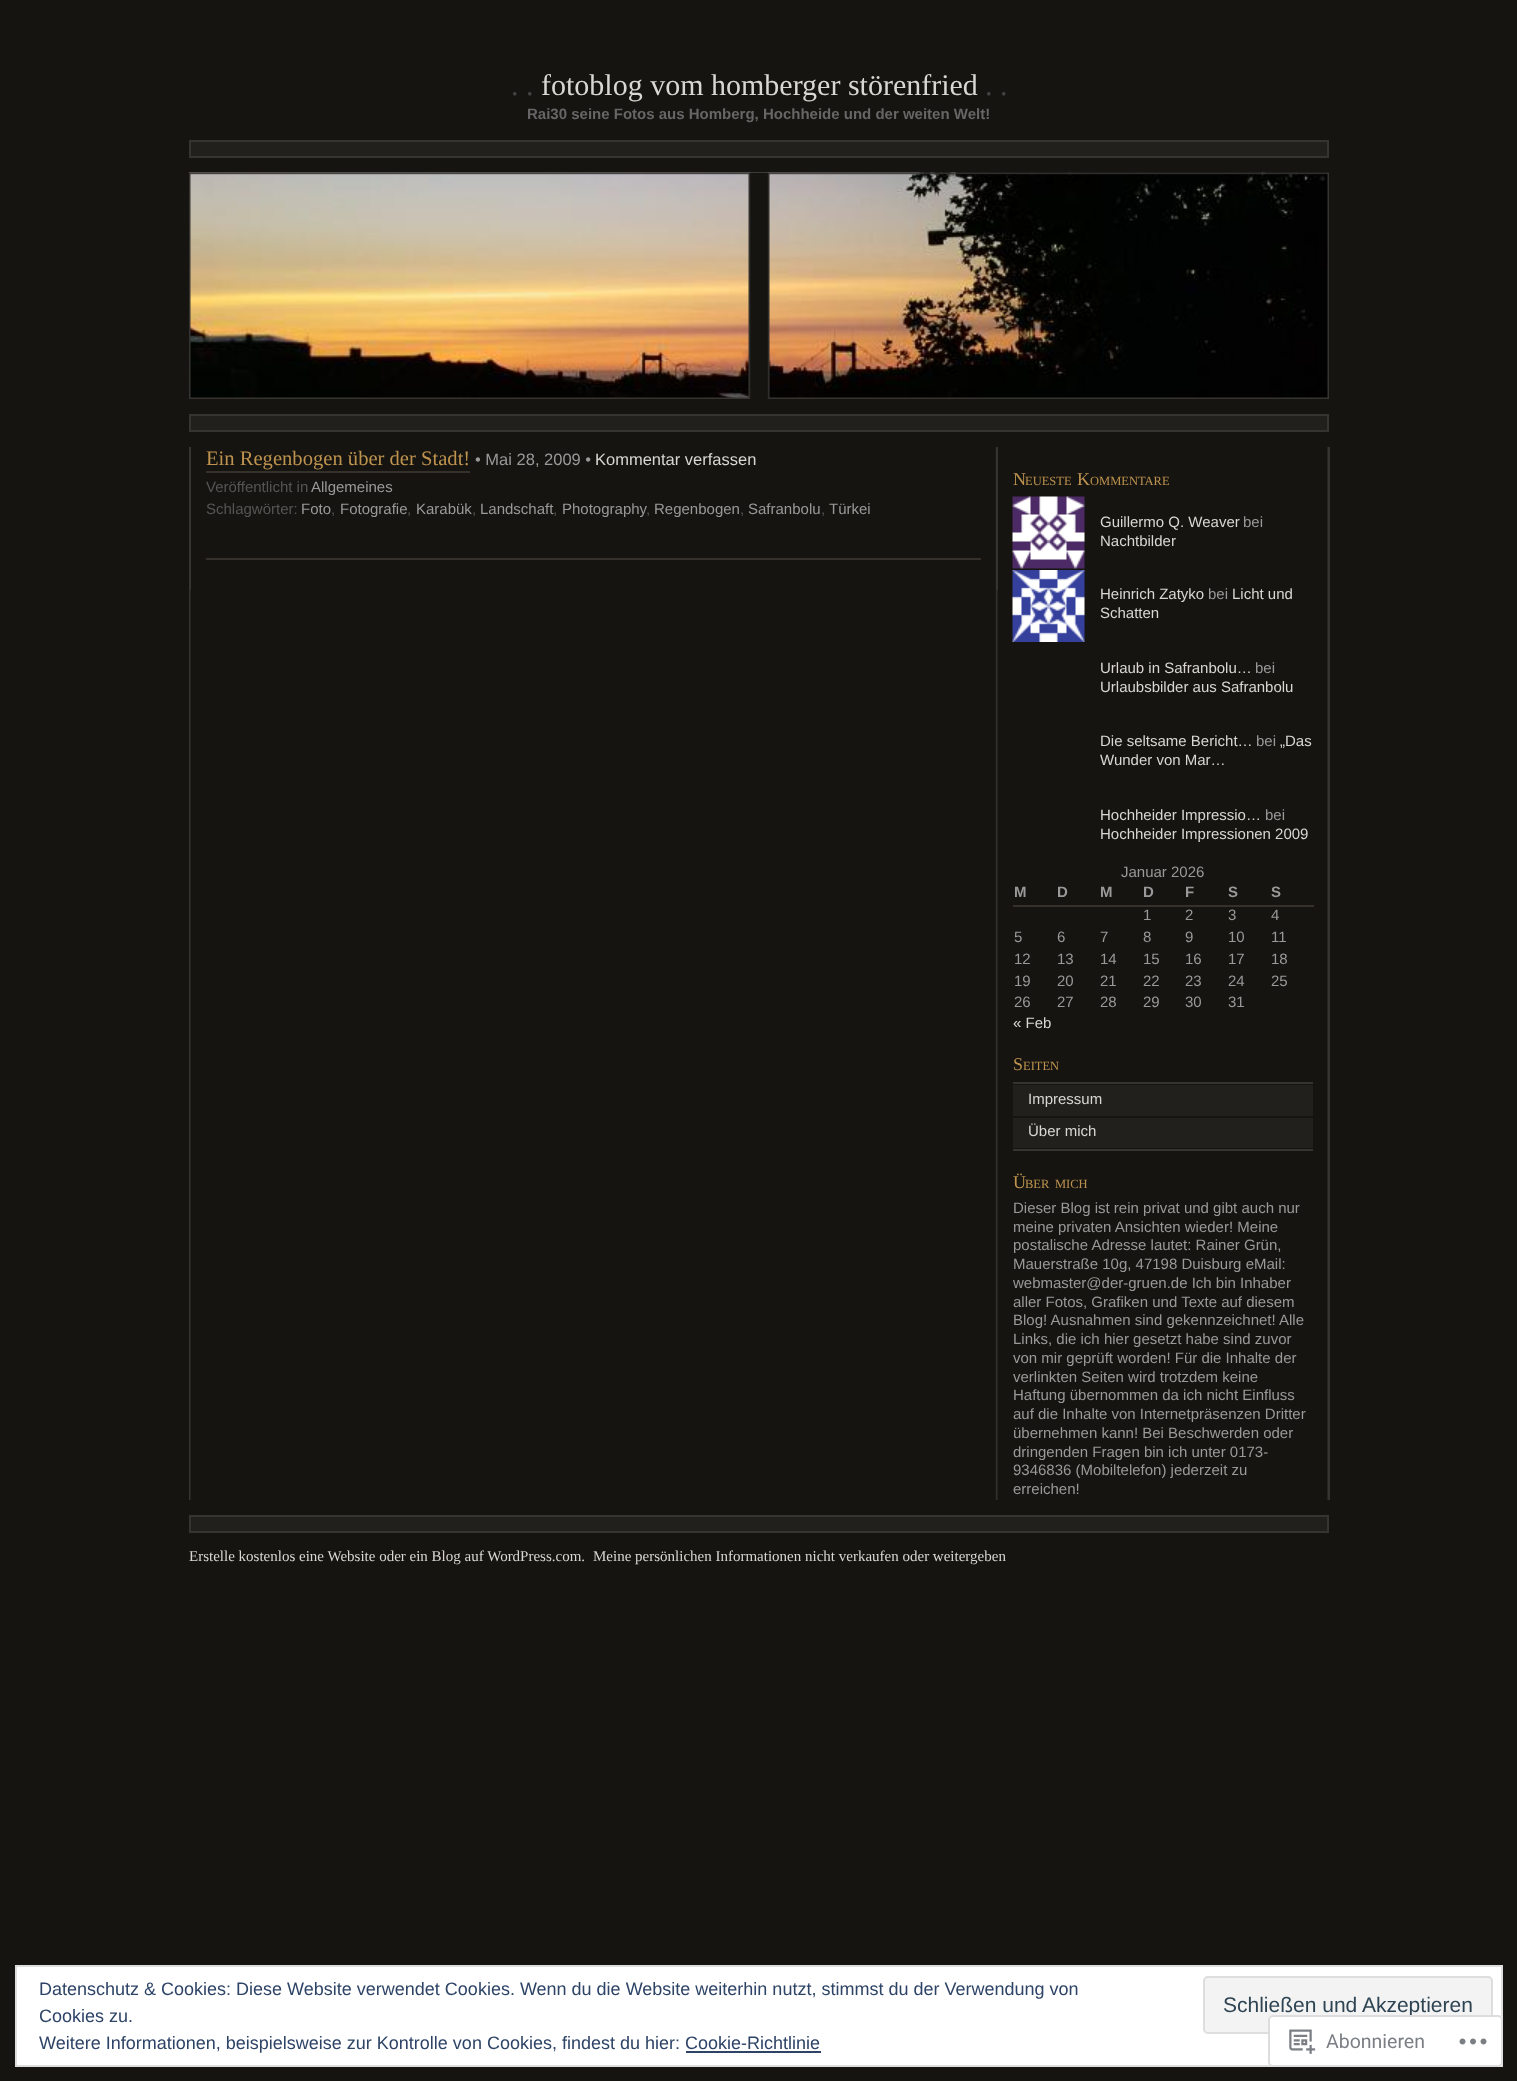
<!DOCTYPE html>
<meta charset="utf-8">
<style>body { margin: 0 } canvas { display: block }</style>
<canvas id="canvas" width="1517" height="2081"></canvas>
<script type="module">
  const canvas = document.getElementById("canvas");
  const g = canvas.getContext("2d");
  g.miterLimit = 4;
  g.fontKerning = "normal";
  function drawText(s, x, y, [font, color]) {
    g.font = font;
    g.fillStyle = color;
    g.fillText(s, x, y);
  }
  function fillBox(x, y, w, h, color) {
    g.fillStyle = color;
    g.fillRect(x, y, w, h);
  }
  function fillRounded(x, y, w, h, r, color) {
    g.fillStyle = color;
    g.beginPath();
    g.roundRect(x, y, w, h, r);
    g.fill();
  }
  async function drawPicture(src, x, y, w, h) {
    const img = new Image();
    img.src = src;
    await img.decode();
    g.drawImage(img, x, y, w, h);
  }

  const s1 = ["30px Liberation Serif", "#444444"];
  const s2 = ["30px Liberation Serif", "#D8D7D3"];
  const s3 = ["bold 15px Liberation Sans", "#666666"];
  const s4 = ["20.6px Liberation Serif", "#BD934F"];
  const s5 = ["16.5px Liberation Sans", "#999999"];
  const s6 = ["16.5px Liberation Sans", "#D8D7D3"];
  const s7 = ["15px Liberation Sans", "#555555"];
  const s8 = ["15px Liberation Sans", "#999999"];
  const s9 = ["18px Liberation Serif", "#BD934F"];
  const s10 = ["12.5px Liberation Serif", "#BD934F"];
  const s11 = ["15px Liberation Sans", "#D8D7D3"];
  const s12 = ["bold 15px Liberation Sans", "#999999"];
  const s13 = ["15px Liberation Serif", "#D8D7D3"];
  const s14 = ["18px Liberation Sans", "#2E4467"];
  const s15 = ["21px Liberation Sans", "#2E4453"];
  const s16 = ["19.5px Roboto", "#7B7F84"];

  fillBox(0, 0, 1517, 2081, "#161410");
  drawText(". .", 511, 95, s1);
  drawText("fotoblog vom homberger störenfried", 541, 95, s2);
  drawText(". .", 985, 95, s1);
  drawText("Rai30 seine Fotos aus Homberg, Hochheide und der weiten Welt!", 527, 119, s3);
  g.fillStyle = "#22201D";
  g.beginPath();
  g.rect(190, 141, 1138, 16);
  g.fill();
  g.strokeStyle = "#363430";
  g.lineWidth = 2;
  g.stroke();
  await drawPicture("pic1.png", 189, 172, 1140, 226);
  await drawPicture("pic2.png", 189, 172, 1140, 227);
  g.beginPath();
  g.rect(190, 415, 1138, 16);
  g.fill();
  g.stroke();
  await drawPicture("pic3.png", 189, 447, 1139, 1053);
  fillBox(996, 447, 2, 143, "#363430");
  fillBox(190, 447, 1, 143, "#363430");
  drawText("Ein Regenbogen über der Stadt!", 206, 465, s4);
  fillBox(206, 471, 264, 2, "#35302A");
  drawText("• Mai 28, 2009 •", 475, 465, s5);
  drawText("Kommentar verfassen", 595, 465, s6);
  drawText("Veröffentlicht in", 206, 492, s7);
  drawText("Allgemeines", 311, 492, s8);
  drawText("Schlagwörter:", 206, 514, s7);
  drawText("Foto", 301, 514, s8);
  drawText(",", 331, 514, s7);
  drawText("Fotografie", 340, 514, s8);
  drawText(",", 407, 514, s7);
  drawText("Karabük", 416, 514, s8);
  drawText(",", 472, 514, s7);
  drawText("Landschaft", 480, 514, s8);
  drawText(",", 553, 514, s7);
  drawText("Photography", 562, 514, s8);
  drawText(",", 646, 514, s7);
  drawText("Regenbogen", 654, 514, s8);
  drawText(",", 740, 514, s7);
  drawText("Safranbolu", 748, 514, s8);
  drawText(",", 821, 514, s7);
  drawText("Türkei", 829, 514, s8);
  fillBox(206, 558, 775, 2, "#35302A");
  fillBox(1328, 447, 2, 1053, "#363430");
  drawText("N", 1013, 485, s9);
  drawText("EUESTE", 1025, 485, s10);
  drawText("K", 1077, 485, s9);
  drawText("OMMENTARE", 1090, 485, s10);
  await drawPicture("pic4.png", 1012, 496, 73, 73);
  drawText("Guillermo Q. Weaver", 1100, 527, s11);
  drawText("bei", 1243, 527, s8);
  drawText("Nachtbilder", 1100, 546, s11);
  await drawPicture("pic5.png", 1012, 570, 73, 72);
  drawText("Heinrich Zatyko", 1100, 599, s11);
  drawText("bei", 1208, 599, s8);
  drawText("Licht und", 1232, 599, s11);
  drawText("Schatten", 1100, 618, s11);
  drawText("Urlaub in Safranbolu…", 1100, 673, s11);
  drawText("bei", 1255, 673, s8);
  drawText("Urlaubsbilder aus Safranbolu", 1100, 692, s11);
  drawText("Die seltsame Bericht…", 1100, 746, s11);
  drawText("bei", 1256, 746, s8);
  drawText("„Das", 1280, 746, s11);
  drawText("Wunder von Mar…", 1100, 765, s11);
  drawText("Hochheider Impressio…", 1100, 820, s11);
  drawText("bei", 1265, 820, s8);
  drawText("Hochheider Impressionen 2009", 1100, 839, s11);
  drawText("Januar 2026", 1121, 877, s8);
  drawText("M", 1014, 897, s12);
  drawText("D", 1057, 897, s12);
  drawText("M", 1100, 897, s12);
  drawText("D", 1143, 897, s12);
  drawText("F", 1185, 897, s12);
  drawText("S", 1228, 897, s12);
  fillBox(1013, 905, 301, 2, "#35302A");
  drawText("S", 1271, 897, s12);
  drawText("1", 1143, 920, s8);
  drawText("2", 1185, 920, s8);
  drawText("3", 1228, 920, s8);
  drawText("4", 1271, 920, s8);
  drawText("5", 1014, 942, s8);
  drawText("6", 1057, 942, s8);
  drawText("7", 1100, 942, s8);
  drawText("8", 1143, 942, s8);
  drawText("9", 1185, 942, s8);
  drawText("10", 1228, 942, s8);
  drawText("11", 1271, 942, s8);
  drawText("12", 1014, 964, s8);
  drawText("13", 1057, 964, s8);
  drawText("14", 1100, 964, s8);
  drawText("15", 1143, 964, s8);
  drawText("16", 1185, 964, s8);
  drawText("17", 1228, 964, s8);
  drawText("18", 1271, 964, s8);
  drawText("19", 1014, 986, s8);
  drawText("20", 1057, 986, s8);
  drawText("21", 1100, 986, s8);
  drawText("22", 1143, 986, s8);
  drawText("23", 1185, 986, s8);
  drawText("24", 1228, 986, s8);
  drawText("25", 1271, 986, s8);
  drawText("26", 1014, 1007, s8);
  drawText("27", 1057, 1007, s8);
  drawText("28", 1100, 1007, s8);
  drawText("29", 1143, 1007, s8);
  drawText("30", 1185, 1007, s8);
  drawText("31", 1228, 1007, s8);
  drawText("« Feb", 1013, 1028, s11);
  drawText("S", 1013, 1070, s9);
  drawText("EITEN", 1023, 1070, s10);
  fillBox(1013, 1082, 300, 2, "#363430");
  fillBox(1013, 1149, 300, 2, "#363430");
  fillBox(1013, 1085, 300, 31, "#22201D");
  drawText("Impressum", 1028, 1104, s11);
  fillBox(1013, 1118, 300, 30, "#22201D");
  drawText("Über mich", 1028, 1136, s11);
  drawText("Ü", 1013, 1188, s9);
  drawText("BER", 1025, 1188, s10);
  drawText("MICH", 1055, 1188, s10);
  drawText("Dieser Blog ist rein privat und gibt auch nur", 1013, 1213, s8);
  drawText("meine privaten Ansichten wieder! Meine", 1013, 1232, s8);
  drawText("postalische Adresse lautet: Rainer Grün,", 1013, 1250, s8);
  drawText("Mauerstraße 10g, 47198 Duisburg eMail:", 1013, 1269, s8);
  drawText("webmaster@der-gruen.de Ich bin Inhaber", 1013, 1288, s8);
  drawText("aller Fotos, Grafiken und Texte auf diesem", 1013, 1307, s8);
  drawText("Blog! Ausnahmen sind gekennzeichnet!", 1013, 1325, s8);
  drawText("Alle", 1279, 1325, s8);
  drawText("Links, die ich hier gesetzt habe sind zuvor", 1013, 1344, s8);
  drawText("von mir geprüft worden! Für die Inhalte der", 1013, 1363, s8);
  drawText("verlinkten Seiten wird trotzdem keine", 1013, 1382, s8);
  drawText("Haftung übernommen da ich nicht Einfluss", 1013, 1400, s8);
  drawText("auf die Inhalte von Internetpräsenzen Dritter", 1013, 1419, s8);
  drawText("übernehmen kann! Bei Beschwerden oder", 1013, 1438, s8);
  drawText("dringenden Fragen bin ich unter 0173-", 1013, 1457, s8);
  drawText("9346836 (Mobiltelefon) jederzeit zu", 1013, 1475, s8);
  drawText("erreichen!", 1013, 1494, s8);
  g.fillStyle = "#22201D";
  g.beginPath();
  g.rect(190, 1516, 1138, 16);
  g.fill();
  g.stroke();
  drawText("Erstelle kostenlos eine Website oder ein Blog auf WordPress.com.", 189, 1561, s13);
  drawText("Meine persönlichen Informationen nicht verkaufen oder weitergeben", 593, 1561, s13);
  g.fillStyle = "#FFFFFF";
  g.beginPath();
  g.rect(16, 1966, 1486, 100);
  g.fill();
  g.strokeStyle = "#DEDEDE";
  g.stroke();
  drawText("Datenschutz & Cookies: Diese Website verwendet Cookies. Wenn du die Website weiterhin nutzt, stimmst du der Verwendung von", 39, 1995, s14);
  drawText("Cookies zu.", 39, 2022, s14);
  g.fillStyle = "#F3F3F3";
  g.beginPath();
  g.roundRect(1204, 1977, 288, 56, 4);
  g.fill();
  g.stroke();
  drawText("Schließen und Akzeptieren", 1223, 2012, s15);
  drawText("Weitere Informationen, beispielsweise zur Kontrolle von Cookies, findest du hier: Cookie-Richtlinie", 39, 2049, s14);
  fillBox(686, 2051, 135, 2, "#2E4467");
  fillRounded(1268, 2015, 235, 52, 5, "rgba(255, 255, 255, 0.98)");
  g.beginPath();
  g.roundRect(1269, 2016, 233, 50, 4);
  g.strokeStyle = "rgba(220, 220, 222, 0.98)";
  g.stroke();
  await drawPicture("pic6.png", 1289, 2029, 27, 25);
  drawText("Abonnieren", 1326, 2048, s16);
  await drawPicture("pic7.png", 1459, 2038, 28, 7);
</script>
